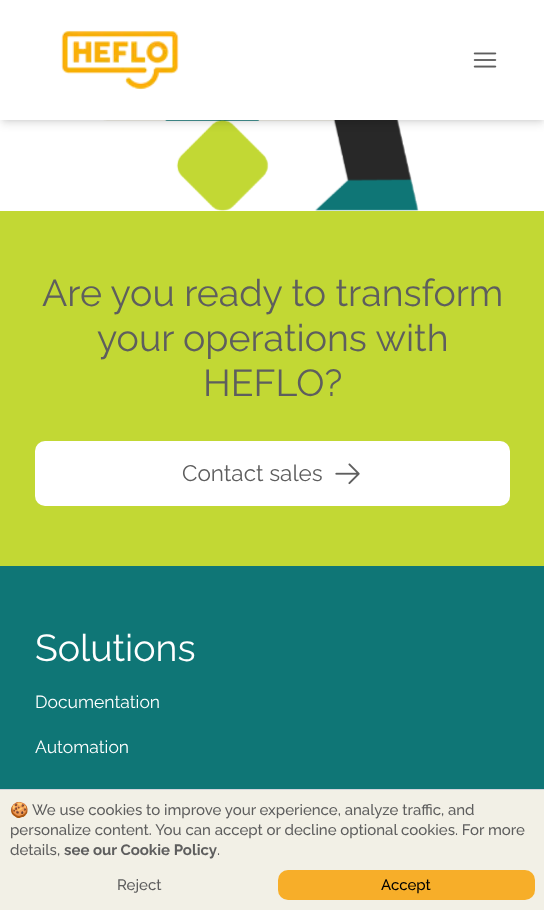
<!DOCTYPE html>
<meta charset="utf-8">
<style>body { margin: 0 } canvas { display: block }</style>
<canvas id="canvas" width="544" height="910"></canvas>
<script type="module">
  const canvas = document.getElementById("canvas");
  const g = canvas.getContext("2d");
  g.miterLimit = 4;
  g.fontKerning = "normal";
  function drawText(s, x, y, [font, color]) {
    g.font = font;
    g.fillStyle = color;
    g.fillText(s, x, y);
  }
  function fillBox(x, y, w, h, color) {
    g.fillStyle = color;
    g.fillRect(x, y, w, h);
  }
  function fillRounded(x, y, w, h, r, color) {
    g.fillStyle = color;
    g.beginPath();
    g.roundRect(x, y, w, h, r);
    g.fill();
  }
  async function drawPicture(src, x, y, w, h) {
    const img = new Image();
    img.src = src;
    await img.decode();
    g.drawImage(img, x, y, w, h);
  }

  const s1 = ["37.5px Raleway", "#5E5E5E"];
  const s2 = ["22.5px Raleway", "#5E5E5E"];
  const s3 = ["37.5px Raleway", "#FFFFFF"];
  const s4 = ["17.5px Raleway", "#FFFFFF"];
  const s5 = ["15px Noto Color Emoji", "#5E5E5E"];
  const s6 = ["500 15px Raleway", "#5E5E5E"];
  const s7 = ["bold 15px Raleway", "#5E5E5E"];
  const s8 = ["500 15px Raleway", "#000000"];

  fillBox(0, 0, 544, 910, "#FFFFFF");
  await drawPicture("pic3.png", 102, 120, 317, 91);
  g.fillStyle = "rgba(0, 0, 0, 0.1)";
  g.filter = "blur(2.5px)";
  g.beginPath();
  g.rect(3, 5, 540, 115);
  g.fill();
  g.filter = "none";
  g.filter = "blur(4px)";
  g.beginPath();
  g.rect(1, 6, 543, 118);
  g.fill();
  g.filter = "none";
  fillBox(0, 0, 544, 120, "#FFFFFF");
  await drawPicture("pic1.png", 61, 30, 118, 60);
  await drawPicture("pic2.png", 473, 52, 24, 16);
  fillBox(0, 211, 544, 355, "#C2D834");
  drawText("Are you ready to transform", 42, 306, s1);
  drawText("your operations with", 97, 351, s1);
  drawText("HEFLO?", 203, 396, s1);
  fillRounded(35, 441, 475, 65, 10, "#FFFFFF");
  drawText("Contact sales", 182, 481, s2);
  await drawPicture("pic4.png", 335, 463, 25, 22);
  fillBox(0, 566, 544, 223, "#0F7676");
  drawText("Solutions", 35, 661, s3);
  drawText("Documentation", 35, 708, s4);
  drawText("Automation", 35, 753, s4);
  fillBox(0, 790, 544, 120, "#F2F0E6");
  fillBox(0, 789, 544, 1, "#D1D5DB");
  drawText("🍪", 10, 815, s5);
  drawText("We use cookies to improve your experience, analyze traffic, and", 32, 815, s6);
  drawText("personalize content. You can accept or decline optional cookies. For more", 10, 835, s6);
  drawText("details,", 10, 855, s6);
  drawText("see our Cookie Policy", 64, 855, s7);
  drawText(".", 217, 855, s6);
  drawText("Reject", 117, 890, s6);
  fillRounded(278, 870, 257, 30, 10, "#F7AE29");
  drawText("Accept", 381, 890, s8);
</script>
